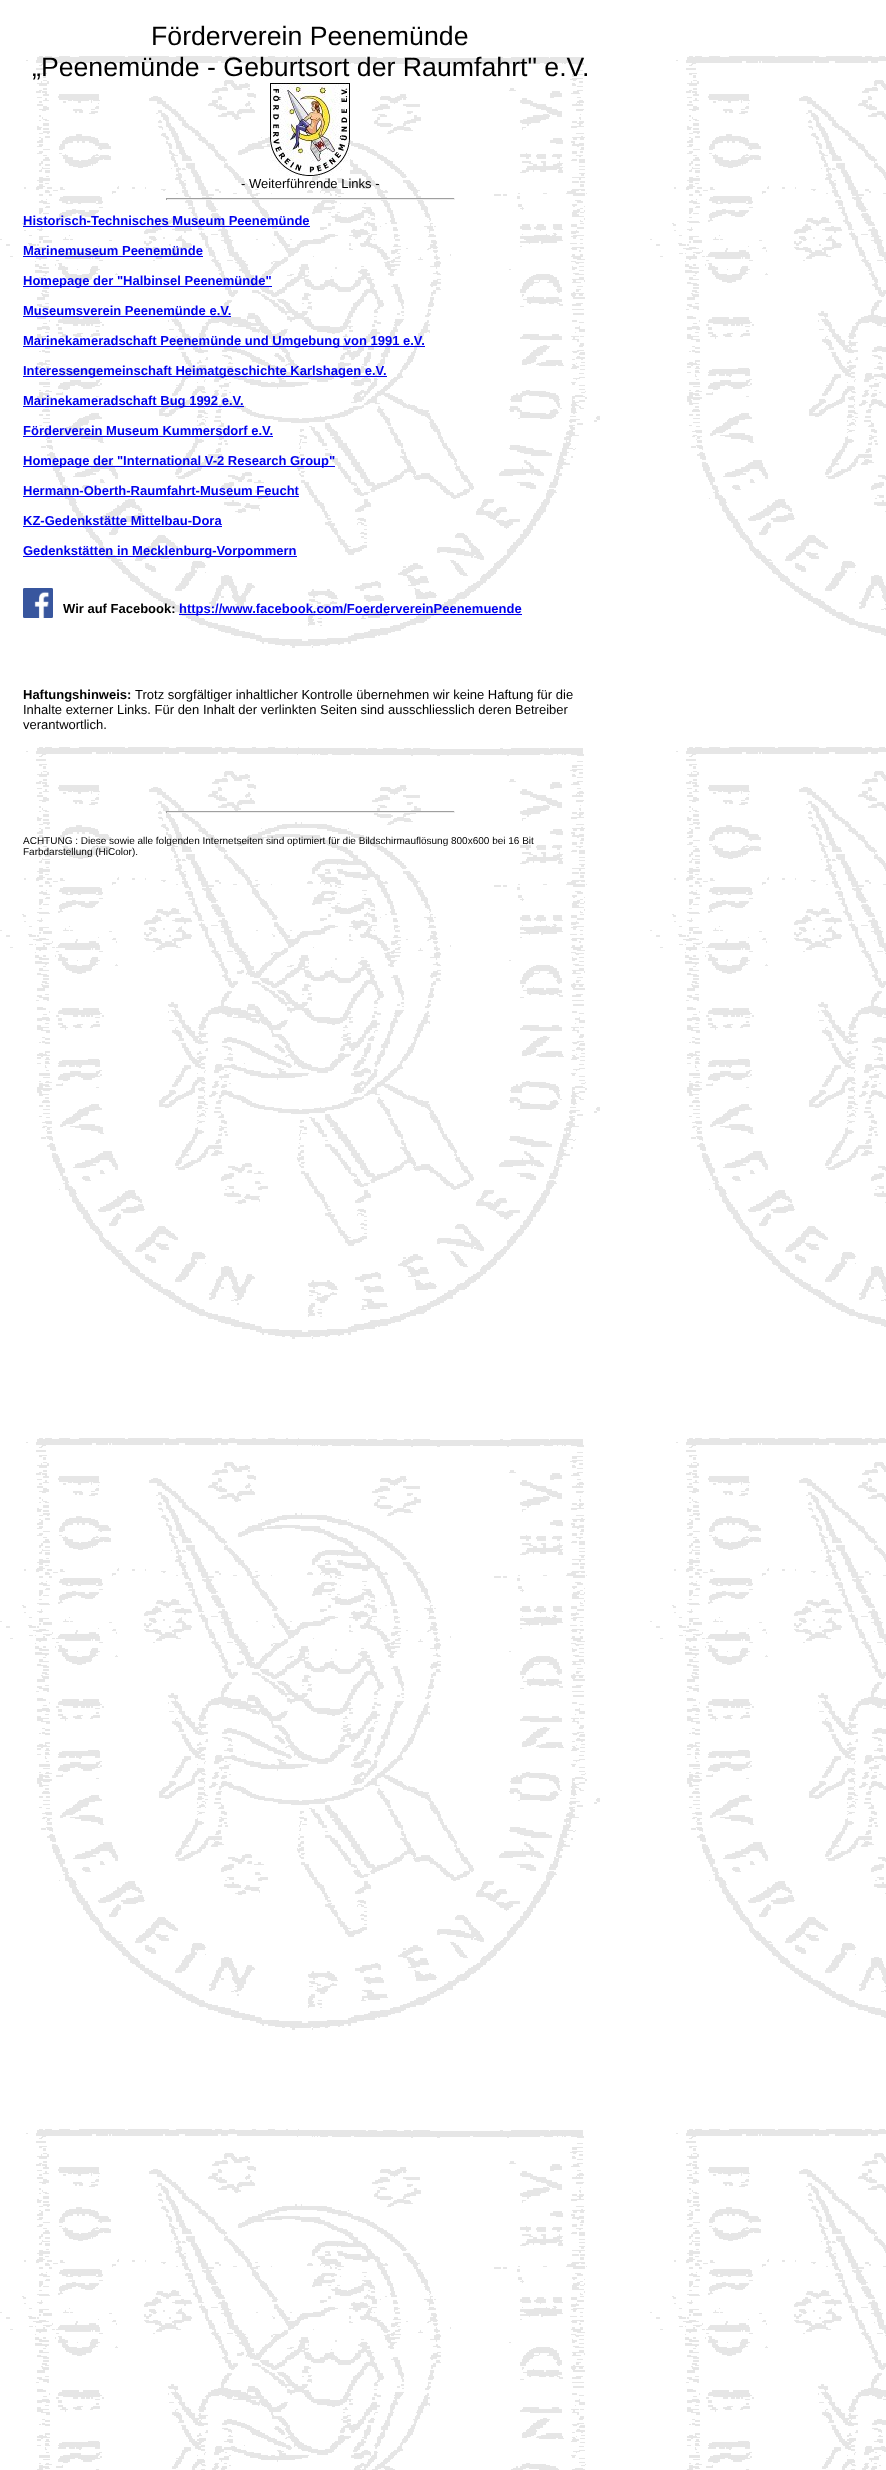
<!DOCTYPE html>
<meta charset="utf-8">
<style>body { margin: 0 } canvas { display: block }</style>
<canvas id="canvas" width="886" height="2470"></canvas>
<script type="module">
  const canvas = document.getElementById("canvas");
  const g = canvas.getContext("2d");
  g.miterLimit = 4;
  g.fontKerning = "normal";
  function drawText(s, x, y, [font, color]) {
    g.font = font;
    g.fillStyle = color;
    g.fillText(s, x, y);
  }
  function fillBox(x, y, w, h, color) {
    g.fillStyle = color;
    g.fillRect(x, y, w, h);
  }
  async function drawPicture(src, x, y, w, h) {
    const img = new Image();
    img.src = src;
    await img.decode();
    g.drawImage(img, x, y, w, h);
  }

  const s1 = ["26.7px Liberation Sans", "#000000"];
  const s2 = ["13px Liberation Sans", "#000000"];
  const s3 = ["bold 13px Liberation Sans", "#0000EE"];
  const s4 = ["bold 13px Liberation Sans", "#000000"];
  const s5 = ["10px Liberation Sans", "#000000"];

  fillBox(0, 0, 886, 2470, "#FFFFFF");
  await drawPicture("pic1.png", 0, 56, 886, 2414);
  drawText("Förderverein Peenemünde", 151, 45, s1);
  drawText("„Peenemünde - Geburtsort der Raumfahrt\" e.V.", 32, 76, s1);
  await drawPicture("pic2.png", 270, 83, 80, 93);
  drawText("- Weiterführende Links -", 241, 188, s2);
  fillBox(166, 198, 289, 1, "#9F9F9F");
  fillBox(454, 198, 1, 2, "#EEEEEE");
  fillBox(166, 199, 289, 1, "#EEEEEE");
  fillBox(166, 198, 1, 2, "#9F9F9F");
  drawText("Historisch-Technisches Museum Peenemünde", 23, 225, s3);
  fillBox(23, 226, 287, 1, "#0000EE");
  drawText("Marinemuseum Peenemünde", 23, 255, s3);
  fillBox(23, 256, 180, 1, "#0000EE");
  fillBox(23, 286, 249, 1, "#0000EE");
  drawText("Homepage der \"Halbinsel Peenemünde\"", 23, 285, s3);
  drawText("Museumsverein Peenemünde e.V.", 23, 315, s3);
  fillBox(23, 316, 208, 1, "#0000EE");
  fillBox(23, 346, 402, 1, "#0000EE");
  drawText("Marinekameradschaft Peenemünde und Umgebung von 1991 e.V.", 23, 345, s3);
  fillBox(23, 376, 364, 1, "#0000EE");
  drawText("Interessengemeinschaft Heimatgeschichte Karlshagen e.V.", 23, 375, s3);
  fillBox(23, 406, 221, 1, "#0000EE");
  drawText("Marinekameradschaft Bug 1992 e.V.", 23, 405, s3);
  drawText("Förderverein Museum Kummersdorf e.V.", 23, 435, s3);
  fillBox(23, 436, 250, 1, "#0000EE");
  fillBox(23, 466, 312, 1, "#0000EE");
  drawText("Homepage der \"International V-2 Research Group\"", 23, 465, s3);
  drawText("Hermann-Oberth-Raumfahrt-Museum Feucht", 23, 495, s3);
  fillBox(23, 496, 276, 1, "#0000EE");
  drawText("KZ-Gedenkstätte Mittelbau-Dora", 23, 525, s3);
  fillBox(23, 526, 199, 1, "#0000EE");
  fillBox(23, 556, 274, 1, "#0000EE");
  drawText("Gedenkstätten in Mecklenburg-Vorpommern", 23, 555, s3);
  await drawPicture("pic3.png", 23, 588, 30, 30);
  drawText("Wir auf Facebook:", 63, 613, s4);
  fillBox(179, 614, 343, 1, "#0000EE");
  drawText("https://www.facebook.com/FoerdervereinPeenemuende", 179, 613, s3);
  drawText("Haftungshinweis:", 23, 699, s4);
  drawText("Trotz sorgfältiger inhaltlicher Kontrolle übernehmen wir keine Haftung für die", 135, 699, s2);
  drawText("Inhalte externer Links. Für den Inhalt der verlinkten Seiten sind ausschliesslich deren Betreiber", 23, 714, s2);
  drawText("verantwortlich.", 23, 729, s2);
  fillBox(166, 811, 289, 1, "#9F9F9F");
  fillBox(454, 811, 1, 2, "#EEEEEE");
  fillBox(166, 812, 289, 1, "#EEEEEE");
  fillBox(166, 811, 1, 2, "#9F9F9F");
  drawText("ACHTUNG : Diese sowie alle folgenden Internetseiten sind optimiert für die Bildschirmauflösung 800x600 bei 16 Bit", 23, 844, s5);
  drawText("Farbdarstellung (HiColor).", 23, 855, s5);
</script>
